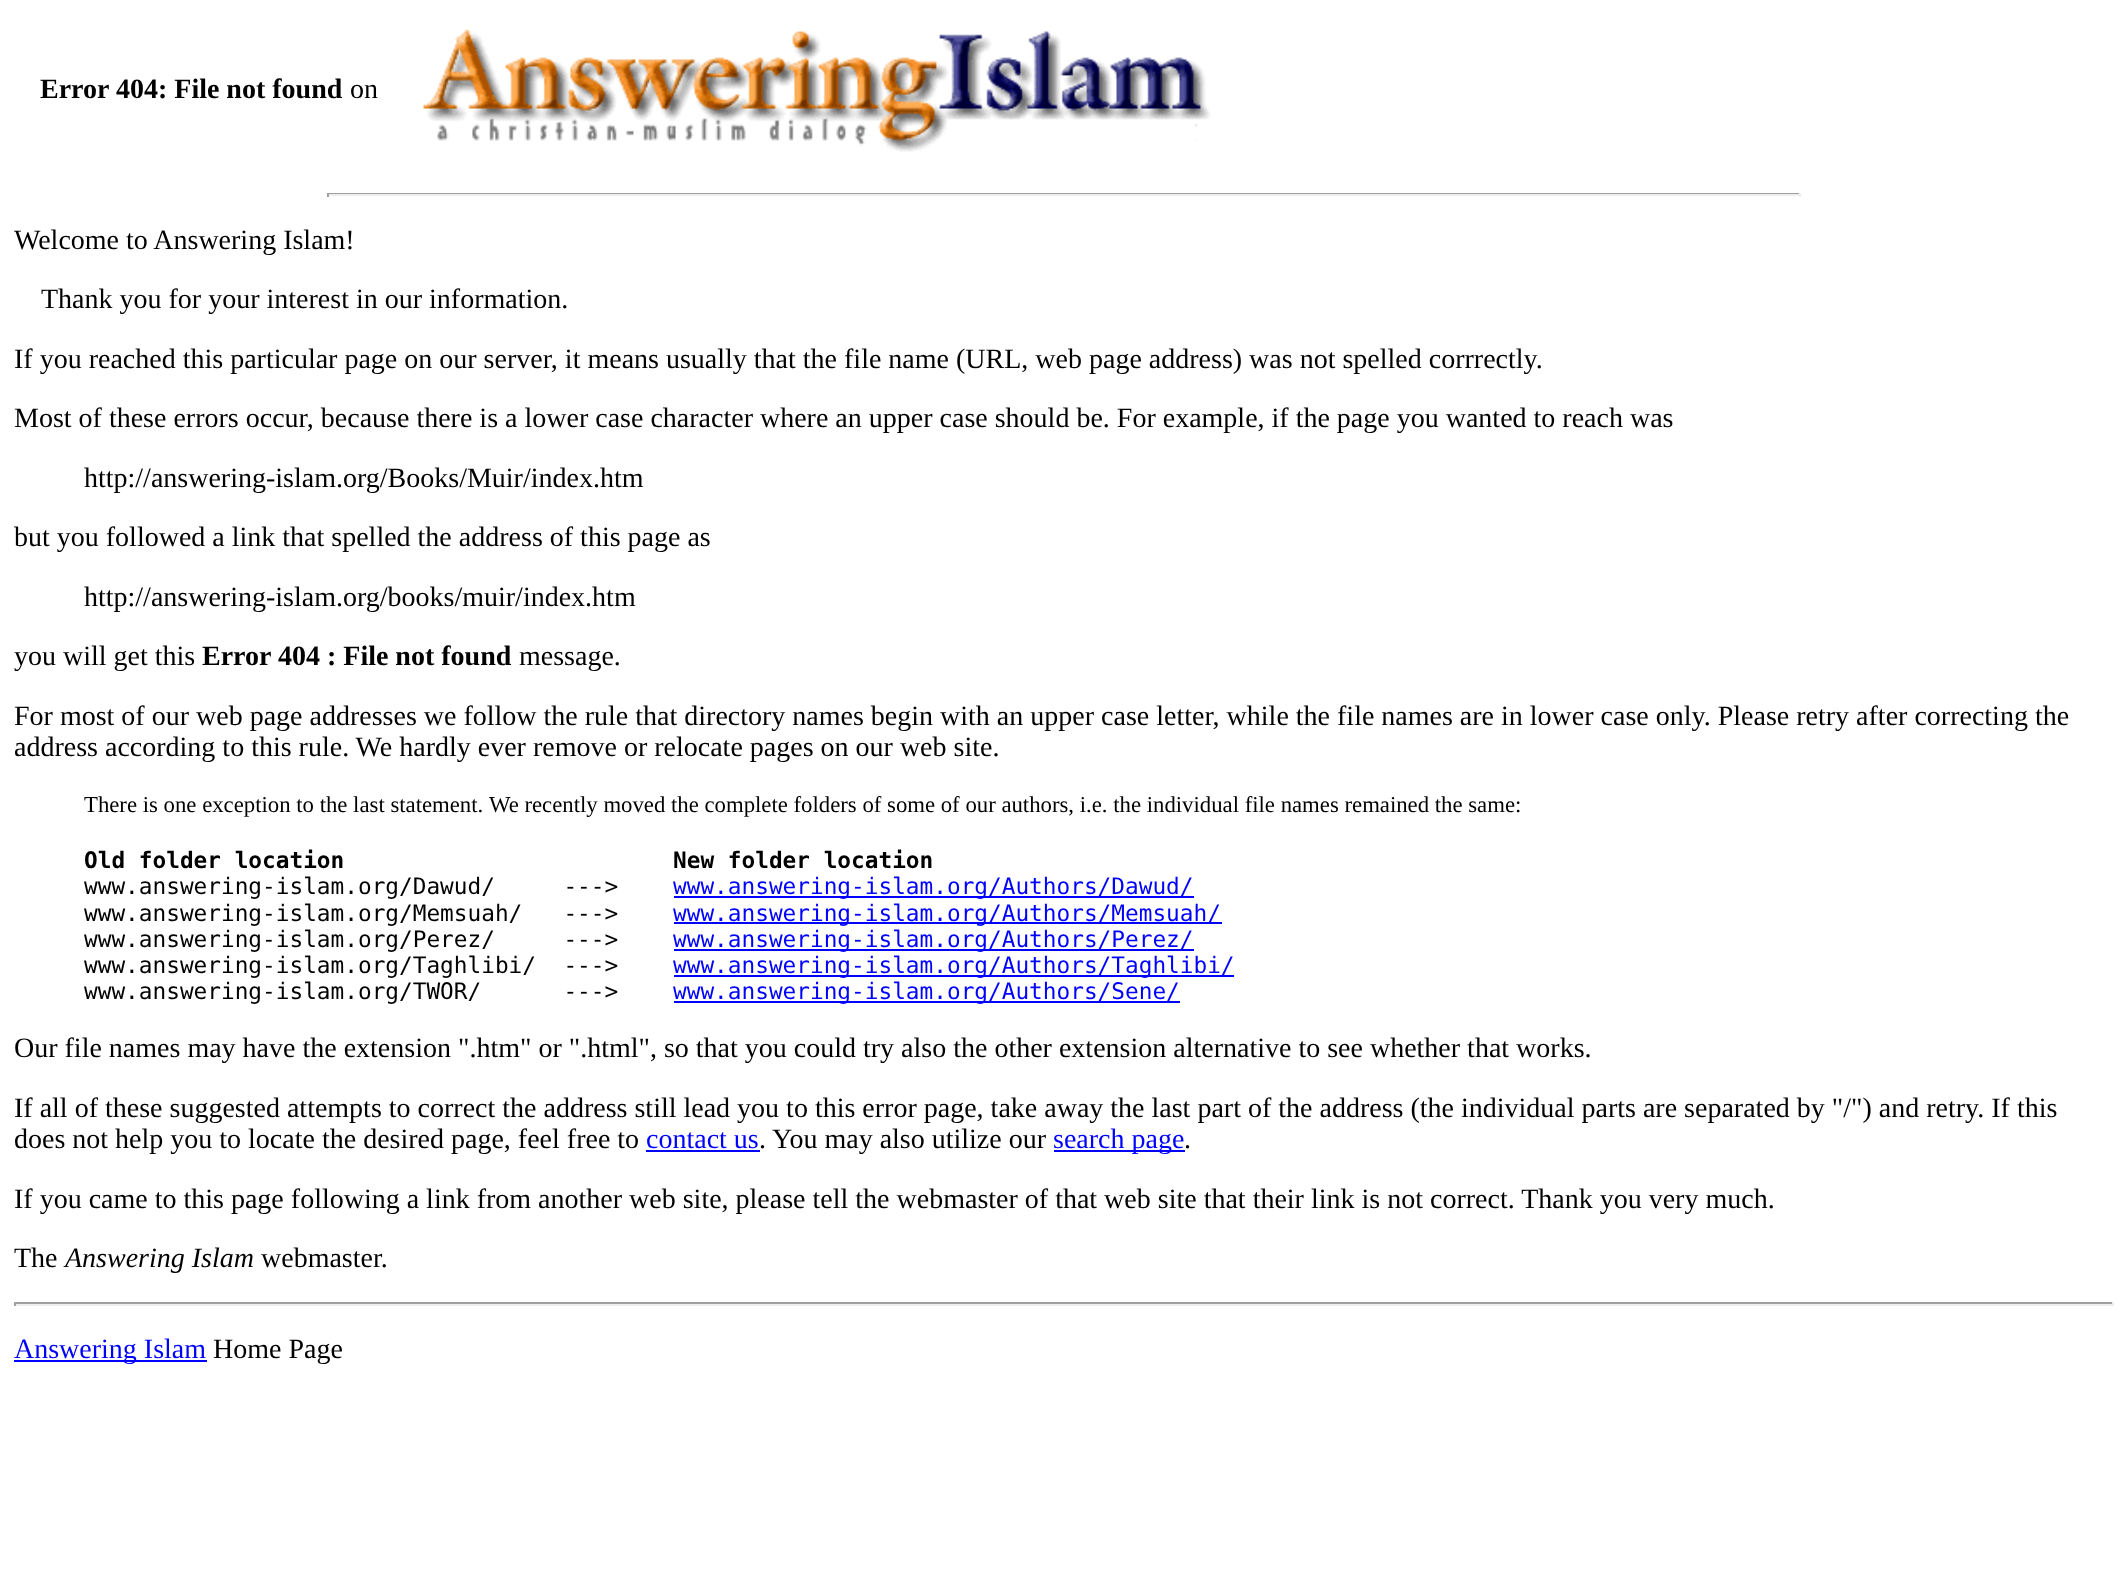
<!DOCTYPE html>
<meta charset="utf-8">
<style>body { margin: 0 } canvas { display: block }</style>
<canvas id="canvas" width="2127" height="1571"></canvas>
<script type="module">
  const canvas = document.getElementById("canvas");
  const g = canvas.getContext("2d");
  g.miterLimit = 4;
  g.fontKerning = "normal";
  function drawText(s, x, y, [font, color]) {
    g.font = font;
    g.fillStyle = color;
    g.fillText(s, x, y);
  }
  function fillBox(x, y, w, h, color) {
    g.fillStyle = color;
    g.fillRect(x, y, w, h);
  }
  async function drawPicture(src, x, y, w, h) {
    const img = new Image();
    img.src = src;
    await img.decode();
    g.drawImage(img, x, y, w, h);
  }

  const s1 = ["bold 28px Liberation Serif", "#000000"];
  const s2 = ["28px Liberation Serif", "#000000"];
  const s3 = ["22.75px Liberation Serif", "#000000"];
  const s4 = ["bold 22.75px DejaVu Sans Mono", "#000000"];
  const s5 = ["22.75px DejaVu Sans Mono", "#000000"];
  const s6 = ["22.75px DejaVu Sans Mono", "#0000FF"];
  const s7 = ["28px Liberation Serif", "#0000FF"];
  const s8 = ["italic 28px Liberation Serif", "#000000"];

  fillBox(0, 0, 2127, 1571, "#FFFFFF");
  drawText("Error 404: File not found", 40, 98, s1);
  drawText("on", 350, 98, s2);
  await drawPicture("pic1.png", 423, 29, 788, 123);
  fillBox(327, 193, 1474, 1, "#9F9F9F");
  fillBox(1799, 193, 2, 4, "#EEEEEE");
  fillBox(327, 194, 1474, 2, "#EEEEEE");
  fillBox(327, 193, 2, 4, "#9F9F9F");
  drawText("Welcome to Answering Islam!", 14, 249, s2);
  drawText("Thank you for your interest in our information.", 41, 308, s2);
  drawText("If you reached this particular page on our server, it means usually that the file name (URL, web page address) was not spelled corrrectly.", 14, 368, s2);
  drawText("Most of these errors occur, because there is a lower case character where an upper case should be. For example, if the page you wanted to reach was", 14, 427, s2);
  drawText("http://answering-islam.org/Books/Muir/index.htm", 84, 487, s2);
  drawText("but you followed a link that spelled the address of this page as", 14, 546, s2);
  drawText("http://answering-islam.org/books/muir/index.htm", 84, 606, s2);
  drawText("you will get this", 14, 665, s2);
  drawText("Error 404 : File not found", 202, 665, s1);
  drawText("message.", 519, 665, s2);
  drawText("For most of our web page addresses we follow the rule that directory names begin with an upper case letter, while the file names are in lower case only. Please retry after correcting the", 14, 725, s2);
  drawText("address according to this rule. We hardly ever remove or relocate pages on our web site.", 14, 756, s2);
  drawText("There is one exception to the last statement.", 84, 812, s3);
  drawText("We recently moved the complete folders of some of our authors, i.e. the individual file names remained the same:", 489, 812, s3);
  drawText("Old folder location", 84, 868, s4);
  drawText("New folder location", 673, 868, s4);
  drawText("www.answering-islam.org/Dawud/     --->", 84, 894, s5);
  fillBox(674, 896, 520, 2, "#0000FF");
  drawText("www.answering-islam.org/Authors/Dawud/", 673, 894, s6);
  drawText("www.answering-islam.org/Memsuah/   --->", 84, 921, s5);
  fillBox(674, 922, 548, 2, "#0000FF");
  drawText("www.answering-islam.org/Authors/Memsuah/", 673, 921, s6);
  drawText("www.answering-islam.org/Perez/     --->", 84, 947, s5);
  fillBox(674, 949, 520, 2, "#0000FF");
  drawText("www.answering-islam.org/Authors/Perez/", 673, 947, s6);
  drawText("www.answering-islam.org/Taghlibi/  --->", 84, 973, s5);
  fillBox(674, 975, 560, 2, "#0000FF");
  drawText("www.answering-islam.org/Authors/Taghlibi/", 673, 973, s6);
  drawText("www.answering-islam.org/TWOR/      --->", 84, 999, s5);
  fillBox(674, 1001, 506, 2, "#0000FF");
  drawText("www.answering-islam.org/Authors/Sene/", 673, 999, s6);
  drawText("Our file names may have the extension \".htm\" or \".html\", so that you could try also the other extension alternative to see whether that works.", 14, 1057, s2);
  drawText("If all of these suggested attempts to correct the address still lead you to this error page, take away the last part of the address (the individual parts are separated by \"/\") and retry. If this", 14, 1117, s2);
  drawText("does not help you to locate the desired page, feel free to", 14, 1148, s2);
  drawText("contact us", 646, 1148, s7);
  fillBox(646, 1150, 114, 2, "#0000FF");
  drawText(".", 759, 1148, s2);
  drawText("You may also utilize our", 772, 1148, s2);
  fillBox(1054, 1150, 131, 2, "#0000FF");
  drawText("search page", 1053, 1148, s7);
  drawText(".", 1184, 1148, s2);
  drawText("If you came to this page following a link from another web site, please tell the webmaster of that web site that their link is not correct. Thank you very much.", 14, 1208, s2);
  drawText("The", 14, 1267, s2);
  drawText("Answering Islam", 65, 1267, s8);
  drawText("webmaster.", 261, 1267, s2);
  fillBox(14, 1302, 2100, 2, "#9F9F9F");
  fillBox(2112, 1302, 2, 4, "#EEEEEE");
  fillBox(14, 1304, 2100, 2, "#EEEEEE");
  fillBox(14, 1302, 2, 4, "#9F9F9F");
  fillBox(14, 1360, 193, 2, "#0000FF");
  drawText("Answering Islam", 14, 1358, s7);
  drawText("Home Page", 213, 1358, s2);
</script>
